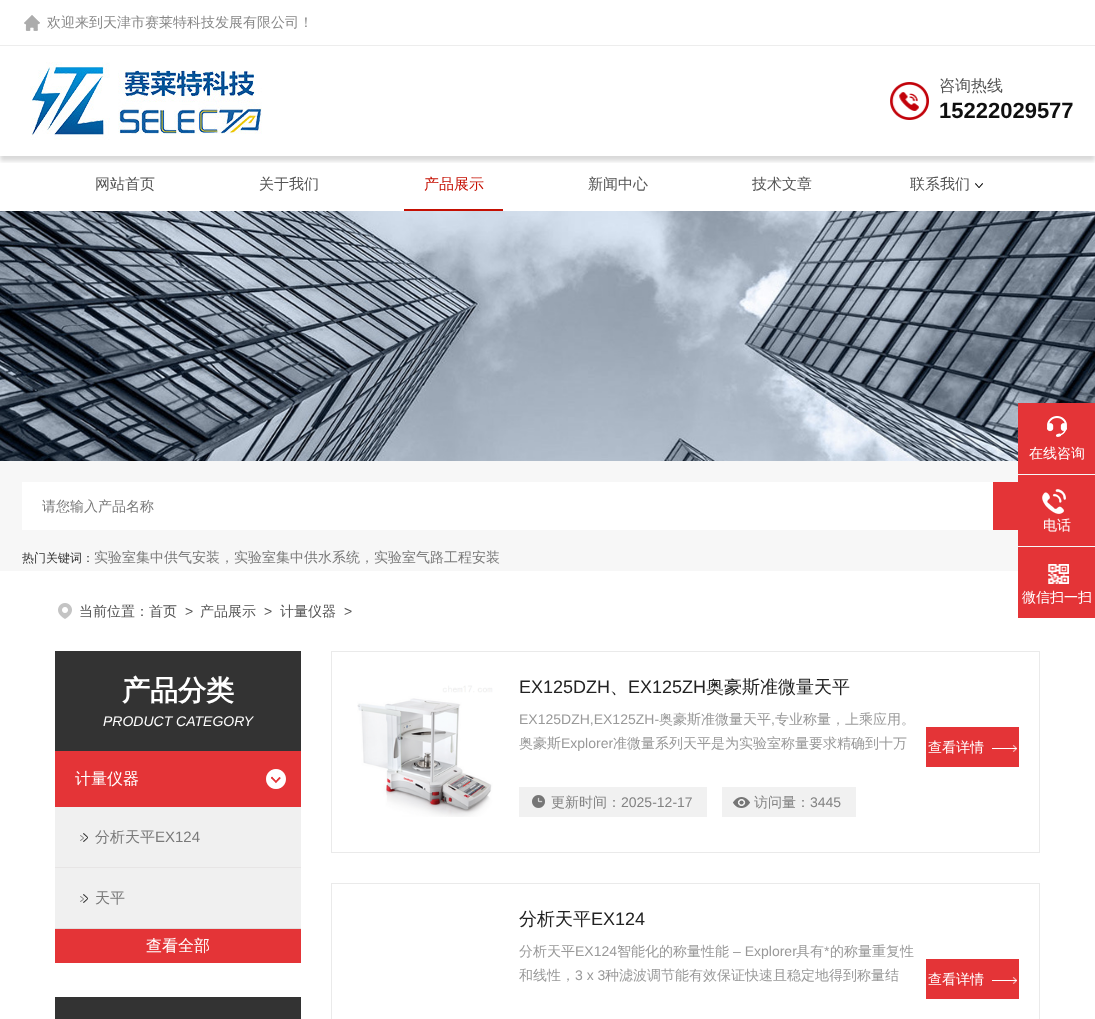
<!DOCTYPE html>
<meta charset="utf-8">
<style>body { margin: 0 } canvas { display: block }</style>
<canvas id="canvas" width="1095" height="1019"></canvas>
<script type="module">
  const canvas = document.getElementById("canvas");
  const g = canvas.getContext("2d");
  g.miterLimit = 4;
  g.fontKerning = "normal";
  function drawText(s, x, y, [font, color]) {
    g.font = font;
    g.fillStyle = color;
    g.fillText(s, x, y);
  }
  function fillBox(x, y, w, h, color) {
    g.fillStyle = color;
    g.fillRect(x, y, w, h);
  }
  async function drawPicture(src, x, y, w, h) {
    const img = new Image();
    img.src = src;
    await img.decode();
    g.drawImage(img, x, y, w, h);
  }

  const s1 = ["500 14px WenQuanYi Zen Hei", "#888888"];
  const s2 = ["500 16px WenQuanYi Zen Hei", "#545454"];
  const s3 = ["bold 22px Liberation Sans", "#0F0F0F"];
  const s4 = ["500 15px WenQuanYi Zen Hei", "#545454"];
  const s5 = ["500 15px WenQuanYi Zen Hei", "#C51003"];
  const s6 = ["500 14px WenQuanYi Zen Hei", "#797979"];
  const s7 = ["500 12px WenQuanYi Zen Hei", "#333333"];
  const s8 = ["500 14px WenQuanYi Zen Hei", "#FFFFFF"];
  const s9 = ["500 14px WenQuanYi Zen Hei", "#545454"];
  const s10 = ["14px Liberation Sans", "#545454"];
  const s11 = ["bold 28px WenQuanYi Zen Hei", "#FFFFFF"];
  const s12 = ["italic 14px Liberation Sans", "#FFFFFF"];
  const s13 = ["500 16px WenQuanYi Zen Hei", "#FFFFFF"];
  const s14 = ["500 15px WenQuanYi Zen Hei", "#797979"];
  const s15 = ["15px Liberation Sans", "#797979"];
  const s16 = ["18px Liberation Sans", "#222222"];
  const s17 = ["500 18px WenQuanYi Zen Hei", "#222222"];
  const s18 = ["14px Liberation Sans", "#999999"];
  const s19 = ["500 14px WenQuanYi Zen Hei", "#999999"];
  const s20 = ["500 14px WenQuanYi Zen Hei", "#828282"];
  const s21 = ["14px Liberation Sans", "#828282"];

  fillBox(0, 0, 1095, 1019, "#FFFFFF");
  fillBox(0, 45, 1095, 1, "#EDEDED");
  await drawPicture("pic1.png", 24, 15, 16, 16);
  drawText("欢迎来到天津市赛莱特科技发展有限公司！", 47, 27, s1);
  g.save();
  g.beginPath();
  g.rect(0, 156, 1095, 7);
  g.clip();
  g.fillStyle = "rgba(0, 0, 0, 0.15)";
  g.filter = "blur(2px)";
  g.beginPath();
  g.rect(0, 51, 1095, 110);
  g.fill();
  g.filter = "none";
  g.restore();
  await drawPicture("pic2.png", 30, 62, 232, 78);
  await drawPicture("pic3.png", 890, 82, 39, 38);
  drawText("咨询热线", 939, 91, s2);
  drawText("15222029577", 939, 118, s3);
  drawText("网站首页", 95, 189, s4);
  drawText("关于我们", 259, 189, s4);
  drawText("产品展示", 424, 189, s5);
  fillBox(404, 209, 99, 2, "#C51003");
  drawText("新闻中心", 588, 189, s4);
  drawText("技术文章", 752, 189, s4);
  drawText("联系我们", 910, 189, s4);
  await drawPicture("pic4.png", 975, 183, 8, 5);
  await drawPicture("pic5.png", 0, 211, 1095, 250);
  fillBox(0, 461, 1095, 110, "#F7F7F7");
  fillBox(22, 482, 971, 48, "#FFFFFF");
  drawText("请您输入产品名称", 42, 511, s6);
  fillBox(993, 482, 25, 48, "#E43437");
  drawText("热门关键词：", 22, 562, s7);
  drawText("实验室集中供气安装，实验室集中供水系统，实验室气路工程安装", 94, 562, s6);
  fillBox(1018, 403, 77, 71, "#E43437");
  await drawPicture("pic6.png", 1047, 416, 20, 21);
  drawText("在线咨询", 1029, 458, s8);
  fillBox(1018, 475, 77, 71, "#E43437");
  await drawPicture("pic7.png", 1042, 489, 24, 25);
  drawText("电话", 1043, 530, s8);
  fillBox(1018, 547, 77, 71, "#E43437");
  await drawPicture("pic8.png", 1048, 564, 21, 20);
  drawText("微信扫一扫", 1022, 602, s8);
  await drawPicture("pic9.png", 58, 603, 14, 16);
  drawText("当前位置：首页", 79, 616, s9);
  drawText(">", 185, 616, s10);
  drawText("产品展示", 200, 616, s9);
  drawText(">", 264, 616, s10);
  drawText("计量仪器", 280, 616, s9);
  drawText(">", 344, 616, s10);
  fillBox(55, 651, 246, 100, "#333333");
  drawText("产品分类", 122, 700, s11);
  drawText("PRODUCT CATEGORY", 103, 726, s12);
  fillBox(55, 807, 246, 121, "#F0F0F0");
  fillBox(55, 928, 246, 1, "#DFDFDF");
  fillBox(55, 751, 246, 56, "#E43437");
  drawText("计量仪器", 75, 784, s13);
  await drawPicture("pic10.png", 266, 769, 20, 20);
  await drawPicture("pic11.png", 80, 833, 8, 9);
  drawText("分析天平", 95, 842, s14);
  drawText("EX124", 155, 842, s15);
  await drawPicture("pic11.png", 80, 894, 8, 9);
  fillBox(55, 867, 246, 1, "#E7E5E5");
  drawText("天平", 95, 903, s14);
  fillBox(55, 929, 246, 34, "#E43437");
  drawText("查看全部", 146, 951, s13);
  fillBox(55, 997, 246, 22, "#333333");
  g.strokeStyle = "#EAEAEA";
  g.strokeRect(331.5, 651.5, 708, 201);
  await drawPicture("pic12.png", 357, 685, 136, 132);
  drawText("EX125DZH", 519, 693, s16);
  drawText("、", 610, 693, s17);
  drawText("EX125ZH", 628, 693, s16);
  drawText("奥豪斯准微量天平", 706, 693, s17);
  drawText("EX125DZH,EX125ZH-", 519, 724, s18);
  drawText("奥豪斯准微量天平", 659, 724, s19);
  drawText(",", 771, 724, s18);
  drawText("专业称量，上乘应用。", 775, 724, s19);
  drawText("奥豪斯", 519, 748, s19);
  drawText("Explorer", 561, 748, s18);
  drawText("准微量系列天平是为实验室称量要求精确到十万", 613, 748, s19);
  fillBox(519, 787, 188, 30, "#F1F1F1");
  await drawPicture("pic13.png", 532, 795, 13, 13);
  drawText("更新时间：", 551, 807, s20);
  drawText("2025-12-17", 621, 807, s21);
  fillBox(722, 787, 134, 30, "#F1F1F1");
  await drawPicture("pic14.png", 733, 797, 17, 11);
  drawText("访问量：", 754, 807, s20);
  drawText("3445", 810, 807, s21);
  fillBox(926, 727, 93, 40, "#E43437");
  drawText("查看详情", 928, 752, s8);
  await drawPicture("pic15.png", 992, 745, 25, 7);
  g.strokeRect(331.5, 883.5, 708, 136);
  drawText("分析天平", 519, 925, s17);
  drawText("EX124", 591, 925, s16);
  drawText("分析天平", 519, 956, s19);
  drawText("EX124", 575, 956, s18);
  drawText("智能化的称量性能", 617, 956, s19);
  drawText("– Explorer", 733, 956, s18);
  drawText("具有", 796, 956, s19);
  drawText("*", 824, 956, s18);
  drawText("的称量重复性", 830, 956, s19);
  drawText("和线性，", 519, 980, s19);
  drawText("3 x 3", 575, 980, s18);
  drawText("种滤波调节能有效保证快速且稳定地得到称量结", 605, 980, s19);
  fillBox(926, 959, 93, 40, "#E43437");
  drawText("查看详情", 928, 984, s8);
  await drawPicture("pic15.png", 992, 977, 25, 7);
</script>
